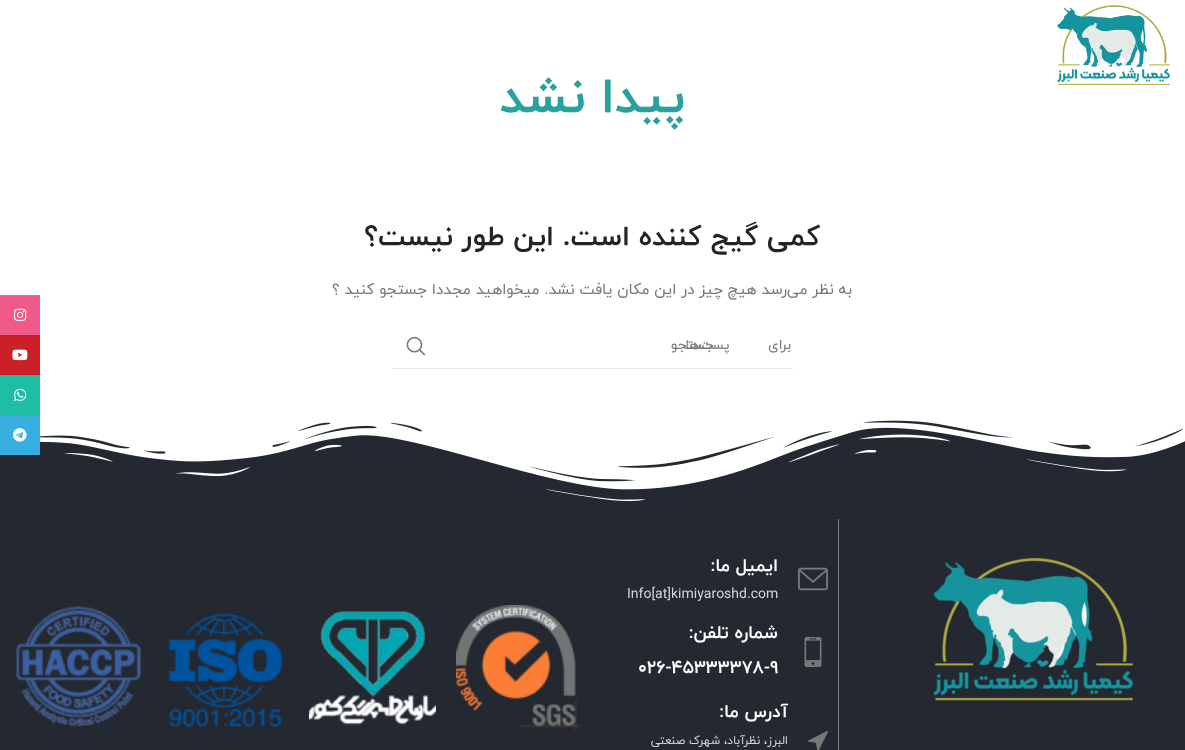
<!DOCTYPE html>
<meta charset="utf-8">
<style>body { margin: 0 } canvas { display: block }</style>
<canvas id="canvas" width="1185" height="750"></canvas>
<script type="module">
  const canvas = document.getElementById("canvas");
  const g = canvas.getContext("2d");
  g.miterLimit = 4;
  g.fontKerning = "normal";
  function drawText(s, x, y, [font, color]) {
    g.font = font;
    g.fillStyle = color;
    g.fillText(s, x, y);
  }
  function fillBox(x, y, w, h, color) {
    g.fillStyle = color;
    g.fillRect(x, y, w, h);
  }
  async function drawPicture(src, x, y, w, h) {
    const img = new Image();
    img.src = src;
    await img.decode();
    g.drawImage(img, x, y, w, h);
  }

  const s1 = ["bold 50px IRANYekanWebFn", "#29A19C"];
  const s2 = ["bold 28px IRANYekanWebFn", "#242424"];
  const s3 = ["15.4px IRANYekanWebFn", "#777777"];
  const s4 = ["14px IRANYekanWebFn", "#777777"];
  const s5 = ["bold 18px IRANYekanWebFn", "#FFFFFF"];
  const s6 = ["14px IRANYekanWebFn", "#D3D4D6"];
  const s7 = ["12px IRANYekanWebFn", "#D3D4D6"];

  fillBox(0, 0, 1185, 750, "#FFFFFF");
  await drawPicture("pic1.png", 1057, 5, 113, 80);
  g.direction = "rtl";
  drawText("پیدا نشد", 685, 112, s1);
  drawText("کمی گیج کننده است. این طور نیست؟", 820, 245, s2);
  drawText("به نظر می‌رسد هیچ چیز در این مکان یافت نشد. میخواهید مجددا جستجو کنید ؟", 852, 294, s3);
  fillBox(393, 368, 400, 1, "#E6E6E6");
  drawText("جستجو", 714, 349, s4);
  g.wordSpacing = "34px";
  drawText("برای پست‌ها", 791, 349, s4);
  await drawPicture("pic2.png", 406, 336, 20, 20);
  fillBox(0, 420, 1185, 330, "#242831");
  await drawPicture("pic3.png", 40, 409, 1145, 92);
  await drawPicture("pic4.png", 933, 557, 200, 144);
  fillBox(838, 519, 1, 231, "#7C7E83");
  await drawPicture("pic5.png", 798, 567, 30, 24);
  g.wordSpacing = "0px";
  drawText("ایمیل ما:", 778, 571, s5);
  g.direction = "ltr";
  drawText("Info[at]kimiyaroshd.com", 627, 598, s6);
  await drawPicture("pic6.png", 804, 637, 18, 30);
  g.direction = "rtl";
  drawText("شماره تلفن:", 778, 638, s5);
  g.direction = "ltr";
  drawText("۰۲۶-۴۵۳۳۳۳۷۸-۹", 638, 673, s5);
  await drawPicture("pic7.png", 808, 731, 20, 19);
  g.direction = "rtl";
  drawText("آدرس ما:", 788, 717, s5);
  drawText("البرز، نظرآباد، شهرک صنعتی", 788, 744, s7);
  await drawPicture("pic8.png", 456, 605, 125, 126);
  await drawPicture("pic9.png", 309, 611, 127, 114);
  await drawPicture("pic10.png", 168, 613, 115, 114);
  await drawPicture("pic11.png", 15, 606, 126, 121);
  fillBox(0, 295, 40, 40, "#EF5A88");
  await drawPicture("pic12.png", 14, 308, 13, 13);
  fillBox(0, 335, 40, 40, "#CB2027");
  await drawPicture("pic13.png", 12, 349, 16, 12);
  fillBox(0, 375, 40, 40, "#1EBEA5");
  await drawPicture("pic14.png", 14, 388, 13, 13);
  fillBox(0, 415, 40, 40, "#37AEE2");
  await drawPicture("pic15.png", 13, 428, 14, 14);
</script>
